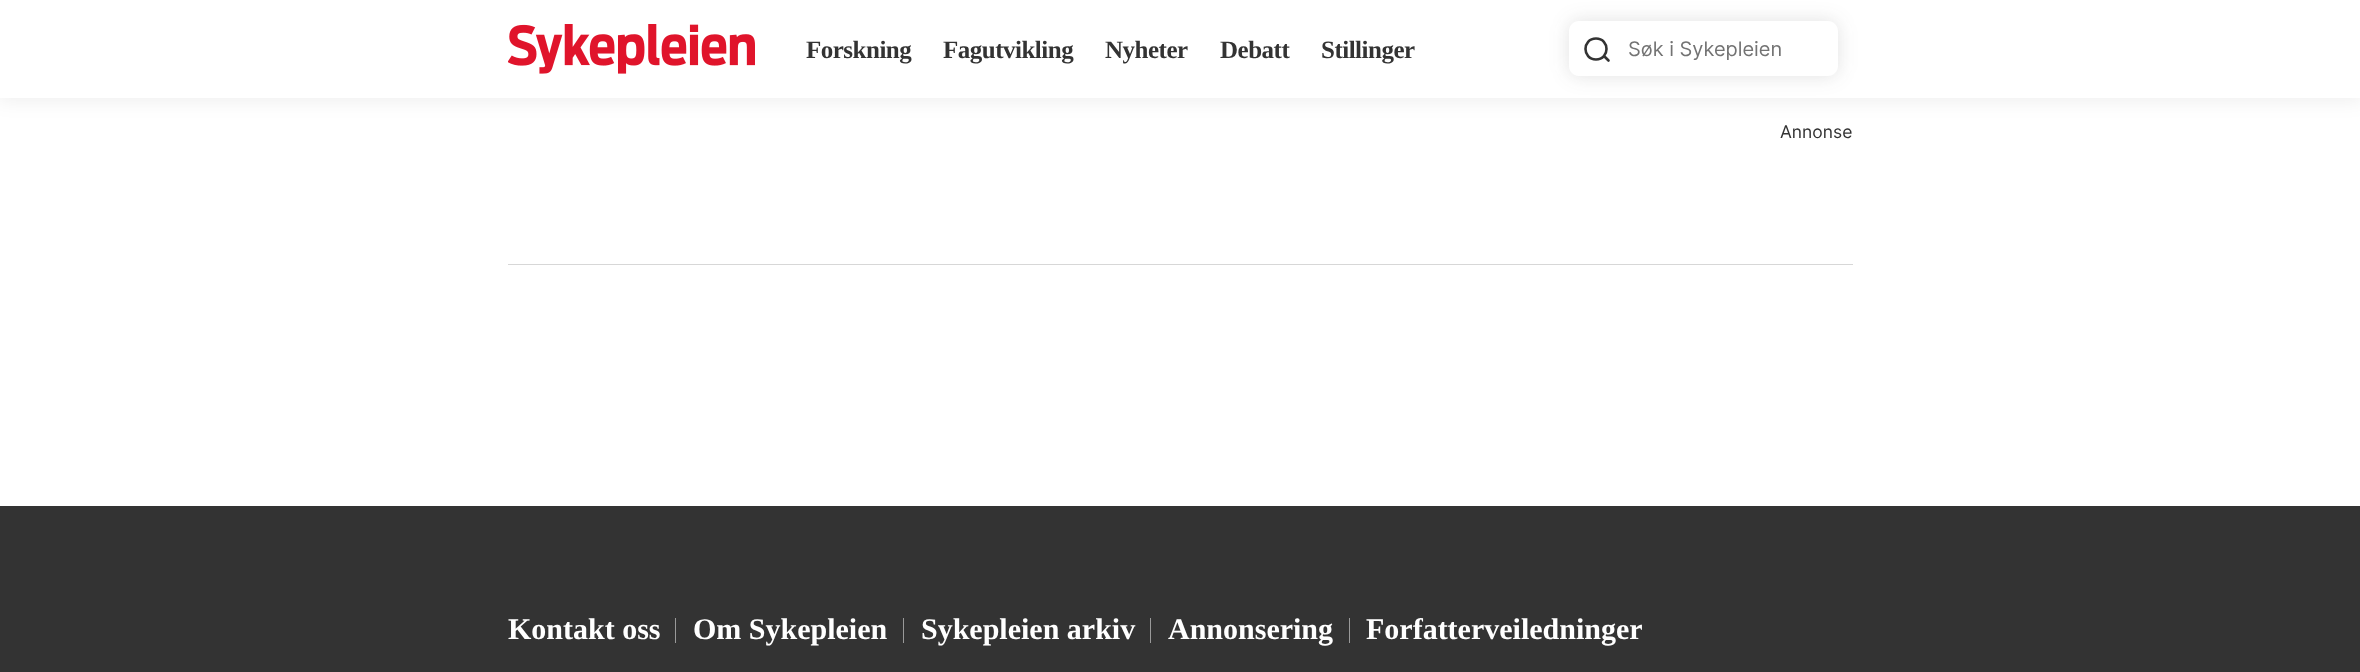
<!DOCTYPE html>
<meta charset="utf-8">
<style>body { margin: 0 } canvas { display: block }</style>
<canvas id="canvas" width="2360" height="672"></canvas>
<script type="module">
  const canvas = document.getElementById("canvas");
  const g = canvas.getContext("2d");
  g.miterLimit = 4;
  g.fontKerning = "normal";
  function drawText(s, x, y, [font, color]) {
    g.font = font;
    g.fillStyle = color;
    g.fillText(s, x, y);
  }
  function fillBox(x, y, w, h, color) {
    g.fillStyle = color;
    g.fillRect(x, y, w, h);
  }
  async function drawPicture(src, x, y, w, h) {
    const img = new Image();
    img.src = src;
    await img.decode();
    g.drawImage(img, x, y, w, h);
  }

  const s1 = ["bold 25px Liberation Serif", "#333333"];
  const s2 = ["20px Inter", "#737373"];
  const s3 = ["17.5px Inter", "#333333"];
  const s4 = ["bold 30px Liberation Serif", "#FFFFFF"];

  fillBox(0, 0, 2360, 672, "#FFFFFF");
  g.fillStyle = "rgba(0, 0, 0, 0.07)";
  g.filter = "blur(10px)";
  g.beginPath();
  g.rect(-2, -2, 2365, 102);
  g.fill();
  g.filter = "none";
  fillBox(0, 0, 2360, 98, "#FFFFFF");
  await drawPicture("pic1.png", 508, 24, 247, 50);
  g.letterSpacing = "-0.5px";
  drawText("Forskning", 806, 58, s1);
  drawText("Fagutvikling", 943, 58, s1);
  drawText("Nyheter", 1105, 58, s1);
  drawText("Debatt", 1220, 58, s1);
  drawText("Stillinger", 1321, 58, s1);
  g.save();
  g.beginPath();
  g.moveTo(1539, 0);
  g.lineTo(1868, 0);
  g.lineTo(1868, 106);
  g.lineTo(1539, 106);
  g.closePath();
  g.moveTo(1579, 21);
  g.lineTo(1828, 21);
  g.bezierCurveTo(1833.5, 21, 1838, 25.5, 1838, 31);
  g.lineTo(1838, 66);
  g.bezierCurveTo(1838, 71.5, 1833.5, 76, 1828, 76);
  g.lineTo(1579, 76);
  g.bezierCurveTo(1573.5, 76, 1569, 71.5, 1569, 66);
  g.lineTo(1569, 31);
  g.bezierCurveTo(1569, 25.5, 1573.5, 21, 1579, 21);
  g.closePath();
  g.clip("evenodd");
  g.fillStyle = "rgba(51, 51, 51, 0.15)";
  g.filter = "blur(9.5px)";
  g.beginPath();
  g.roundRect(1569, 21, 269, 55, 10);
  g.fill();
  g.filter = "none";
  g.restore();
  g.beginPath();
  g.moveTo(1596, 59.5);
  g.bezierCurveTo(1610, 59.5, 1610, 38.5, 1596, 38.5);
  g.bezierCurveTo(1582, 38.5, 1582, 59.5, 1596, 59.5);
  g.closePath();
  g.moveTo(1608.5, 60.5);
  g.lineTo(1604, 56);
  g.strokeStyle = "#333333";
  g.lineWidth = 2.6;
  g.lineCap = "round";
  g.lineJoin = "round";
  g.stroke();
  g.letterSpacing = "0px";
  drawText("Søk i Sykepleien", 1628, 56, s2);
  drawText("Annonse", 1780, 138, s3);
  fillBox(508, 264, 1345, 1, "#D7D7D7");
  fillBox(0, 506, 2360, 166, "#333333");
  drawText("Kontakt oss", 508, 639, s4);
  fillBox(675, 618, 1, 25, "#999999");
  drawText("Om Sykepleien", 693, 639, s4);
  fillBox(903, 618, 1, 25, "#999999");
  drawText("Sykepleien arkiv", 921, 639, s4);
  fillBox(1150, 618, 1, 25, "#999999");
  drawText("Annonsering", 1168, 639, s4);
  fillBox(1349, 618, 1, 25, "#999999");
  drawText("Forfatterveiledninger", 1366, 639, s4);
</script>
